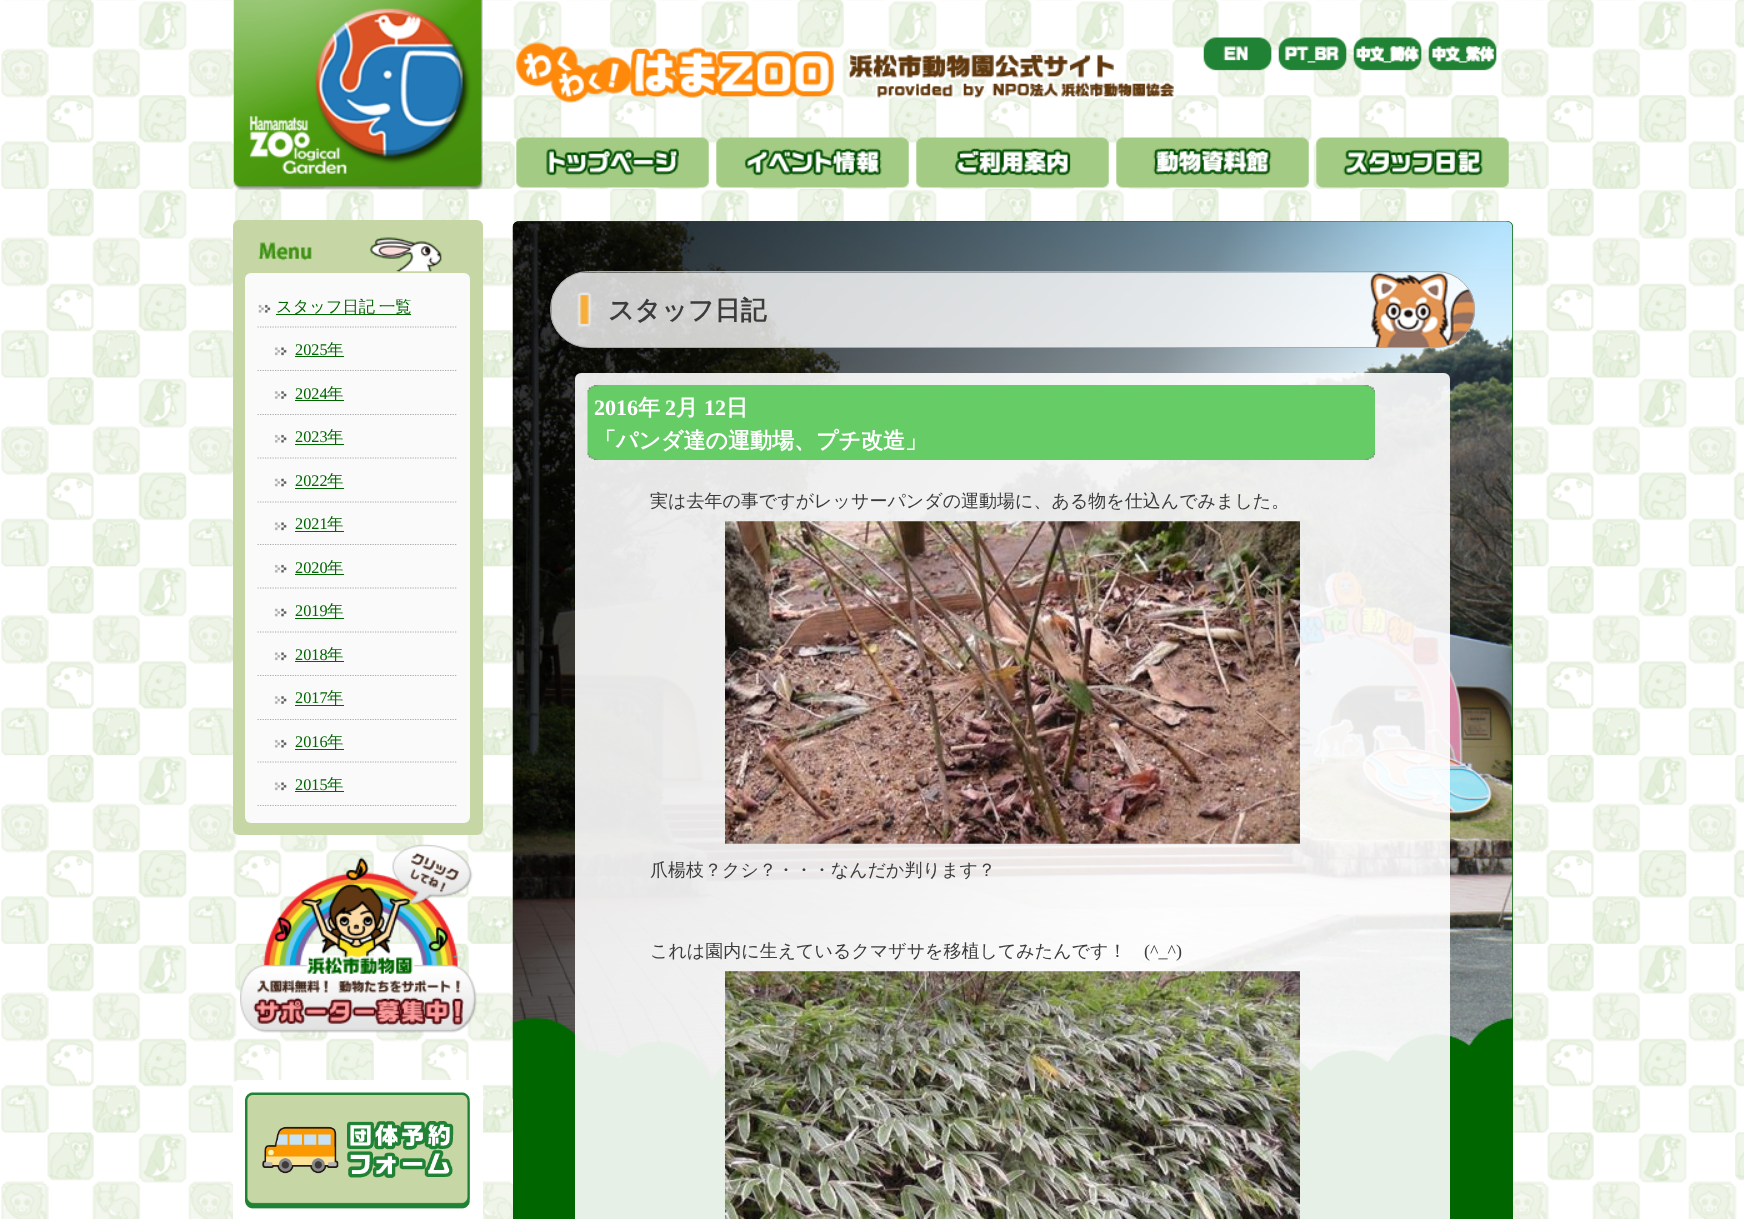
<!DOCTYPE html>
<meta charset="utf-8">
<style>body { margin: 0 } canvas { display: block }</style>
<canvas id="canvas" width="1744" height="1219"></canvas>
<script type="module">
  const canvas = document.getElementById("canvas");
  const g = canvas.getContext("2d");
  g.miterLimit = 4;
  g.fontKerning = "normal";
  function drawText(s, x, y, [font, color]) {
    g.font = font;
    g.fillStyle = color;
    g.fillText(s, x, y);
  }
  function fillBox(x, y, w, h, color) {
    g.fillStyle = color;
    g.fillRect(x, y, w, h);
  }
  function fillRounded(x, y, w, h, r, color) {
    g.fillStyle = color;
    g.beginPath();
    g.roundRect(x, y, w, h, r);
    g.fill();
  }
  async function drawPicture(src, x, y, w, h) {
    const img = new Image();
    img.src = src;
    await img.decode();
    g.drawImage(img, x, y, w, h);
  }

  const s1 = ["500 16.25px WenQuanYi Zen Hei", "#006600"];
  const s2 = ["16.25px Liberation Serif", "#006600"];
  const s3 = ["bold 26px WenQuanYi Zen Hei", "#3C3C3C"];
  const s4 = ["bold 22px Liberation Serif", "#FFFFFF"];
  const s5 = ["bold 22px WenQuanYi Zen Hei", "#FFFFFF"];
  const s6 = ["500 18px WenQuanYi Zen Hei", "#3C3C3C"];
  const s7 = ["18px Liberation Serif", "#3C3C3C"];

  fillBox(0, 0, 1744, 1219, "#FFFFFF");
  await drawPicture("pic1.png", 1, 0, 1743, 1219);
  await drawPicture("pic2.png", 233, 0, 250, 190);
  await drawPicture("pic3.png", 515, 42, 661, 61);
  await drawPicture("pic4.png", 1203, 37, 69, 34);
  await drawPicture("pic5.png", 1278, 37, 69, 34);
  await drawPicture("pic6.png", 1353, 37, 69, 34);
  await drawPicture("pic7.png", 1428, 37, 69, 34);
  await drawPicture("pic8.png", 516, 137, 193, 51);
  await drawPicture("pic9.png", 716, 137, 193, 51);
  await drawPicture("pic10.png", 916, 137, 193, 51);
  await drawPicture("pic11.png", 1116, 137, 193, 51);
  await drawPicture("pic12.png", 1316, 137, 193, 51);
  fillRounded(233, 220, 250, 615, 6, "#C6D7A5");
  await drawPicture("pic13.png", 258, 237, 184, 35);
  fillRounded(245, 273, 225, 550, 6, "#FAFAFA");
  await drawPicture("pic14.png", 258, 304, 13, 9);
  g.beginPath();
  g.moveTo(257.5, 327);
  g.lineTo(457.5, 327);
  g.strokeStyle = "#AAAAAA";
  g.lineWidth = 1.2;
  g.setLineDash([1.25, 1.25]);
  g.stroke();
  fillBox(276, 314, 135, 1, "#006600");
  drawText("スタッフ日記", 276, 312, s1);
  drawText("一覧", 379, 312, s1);
  await drawPicture("pic15.png", 274, 347, 13, 9);
  g.beginPath();
  g.moveTo(257.5, 370.5);
  g.lineTo(457.5, 370.5);
  g.stroke();
  drawText("2025", 295, 355, s2);
  fillBox(295, 356, 49, 1, "#006600");
  drawText("年", 327, 355, s1);
  await drawPicture("pic16.png", 274, 391, 13, 8);
  g.beginPath();
  g.moveTo(257.5, 414.5);
  g.lineTo(457.5, 414.5);
  g.stroke();
  drawText("2024", 295, 399, s2);
  fillBox(295, 400, 49, 1, "#006600");
  drawText("年", 327, 399, s1);
  await drawPicture("pic17.png", 274, 434, 13, 9);
  g.beginPath();
  g.moveTo(257.5, 458);
  g.lineTo(457.5, 458);
  g.stroke();
  drawText("2023", 295, 442, s2);
  fillBox(295, 444, 49, 1, "#006600");
  drawText("年", 327, 442, s1);
  await drawPicture("pic18.png", 274, 478, 13, 9);
  g.beginPath();
  g.moveTo(257.5, 502);
  g.lineTo(457.5, 502);
  g.stroke();
  drawText("2022", 295, 486, s2);
  fillBox(295, 488, 49, 1, "#006600");
  drawText("年", 327, 486, s1);
  await drawPicture("pic15.png", 274, 522, 13, 9);
  g.beginPath();
  g.moveTo(257.5, 544.5);
  g.lineTo(457.5, 544.5);
  g.stroke();
  drawText("2021", 295, 529, s2);
  fillBox(295, 531, 49, 1, "#006600");
  drawText("年", 327, 529, s1);
  await drawPicture("pic17.png", 274, 564, 13, 9);
  g.beginPath();
  g.moveTo(257.5, 588);
  g.lineTo(457.5, 588);
  g.stroke();
  drawText("2020", 295, 573, s2);
  fillBox(295, 574, 49, 1, "#006600");
  drawText("年", 327, 573, s1);
  await drawPicture("pic18.png", 274, 608, 13, 9);
  g.beginPath();
  g.moveTo(257.5, 632);
  g.lineTo(457.5, 632);
  g.stroke();
  drawText("2019", 295, 616, s2);
  fillBox(295, 618, 49, 1, "#006600");
  drawText("年", 327, 616, s1);
  await drawPicture("pic15.png", 274, 652, 13, 9);
  g.beginPath();
  g.moveTo(257.5, 675.5);
  g.lineTo(457.5, 675.5);
  g.stroke();
  drawText("2018", 295, 660, s2);
  fillBox(295, 661, 49, 1, "#006600");
  drawText("年", 327, 660, s1);
  await drawPicture("pic16.png", 274, 696, 13, 8);
  g.beginPath();
  g.moveTo(257.5, 719.5);
  g.lineTo(457.5, 719.5);
  g.stroke();
  drawText("2017", 295, 703, s2);
  fillBox(295, 705, 49, 1, "#006600");
  drawText("年", 327, 703, s1);
  await drawPicture("pic17.png", 274, 739, 13, 9);
  g.beginPath();
  g.moveTo(257.5, 762);
  g.lineTo(457.5, 762);
  g.stroke();
  drawText("2016", 295, 747, s2);
  fillBox(295, 749, 49, 1, "#006600");
  drawText("年", 327, 747, s1);
  await drawPicture("pic15.png", 274, 782, 13, 9);
  g.beginPath();
  g.moveTo(257.5, 805.5);
  g.lineTo(457.5, 805.5);
  g.stroke();
  drawText("2015", 295, 790, s2);
  fillBox(295, 791, 49, 1, "#006600");
  drawText("年", 327, 790, s1);
  await drawPicture("pic19.png", 240, 844, 237, 189);
  fillRounded(233, 1080, 250, 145, 6, "#FFFFFF");
  await drawPicture("pic20.png", 245, 1092, 225, 117);
  g.fillStyle = "#006600";
  g.beginPath();
  g.moveTo(519, 221);
  g.lineTo(1507, 221);
  g.bezierCurveTo(1510.5, 221, 1513, 223.5, 1513, 227);
  g.lineTo(1513, 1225);
  g.lineTo(513, 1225);
  g.lineTo(513, 227);
  g.bezierCurveTo(513, 223.5, 515.5, 221, 519, 221);
  g.closePath();
  g.fill();
  await drawPicture("pic21.png", 512, 221, 1001, 878);
  await drawPicture("pic22.png", 551, 272, 924, 76);
  g.beginPath();
  g.roundRect(550.5, 271.5, 924, 76, 38);
  g.lineWidth = 1;
  g.setLineDash([]);
  g.stroke();
  drawText("スタッフ日記", 608, 319, s3);
  fillRounded(575, 373, 875, 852, 6, "rgba(255, 255, 255, 0.9)");
  await drawPicture("pic23.png", 587, 385, 788, 75);
  drawText("2016", 594, 415, s4);
  drawText("年", 638, 415, s5);
  drawText("2", 665, 415, s4);
  drawText("月", 676, 415, s5);
  drawText("12", 704, 415, s4);
  drawText("日", 726, 415, s5);
  drawText("「パンダ達の運動場、プチ改造」", 594, 448, s5);
  drawText("実は去年の事ですがレッサーパンダの運動場に、ある物を仕込んでみました。", 650, 507, s6);
  await drawPicture("pic24.png", 725, 521, 575, 323);
  drawText("爪楊枝？クシ？・・・なんだか判ります？", 650, 876, s6);
  drawText("これは園内に生えているクマザサを移植してみたんです！", 650, 957, s6);
  drawText("(^_^)", 1144, 957, s7);
  await drawPicture("pic25.png", 725, 971, 575, 248);
</script>
